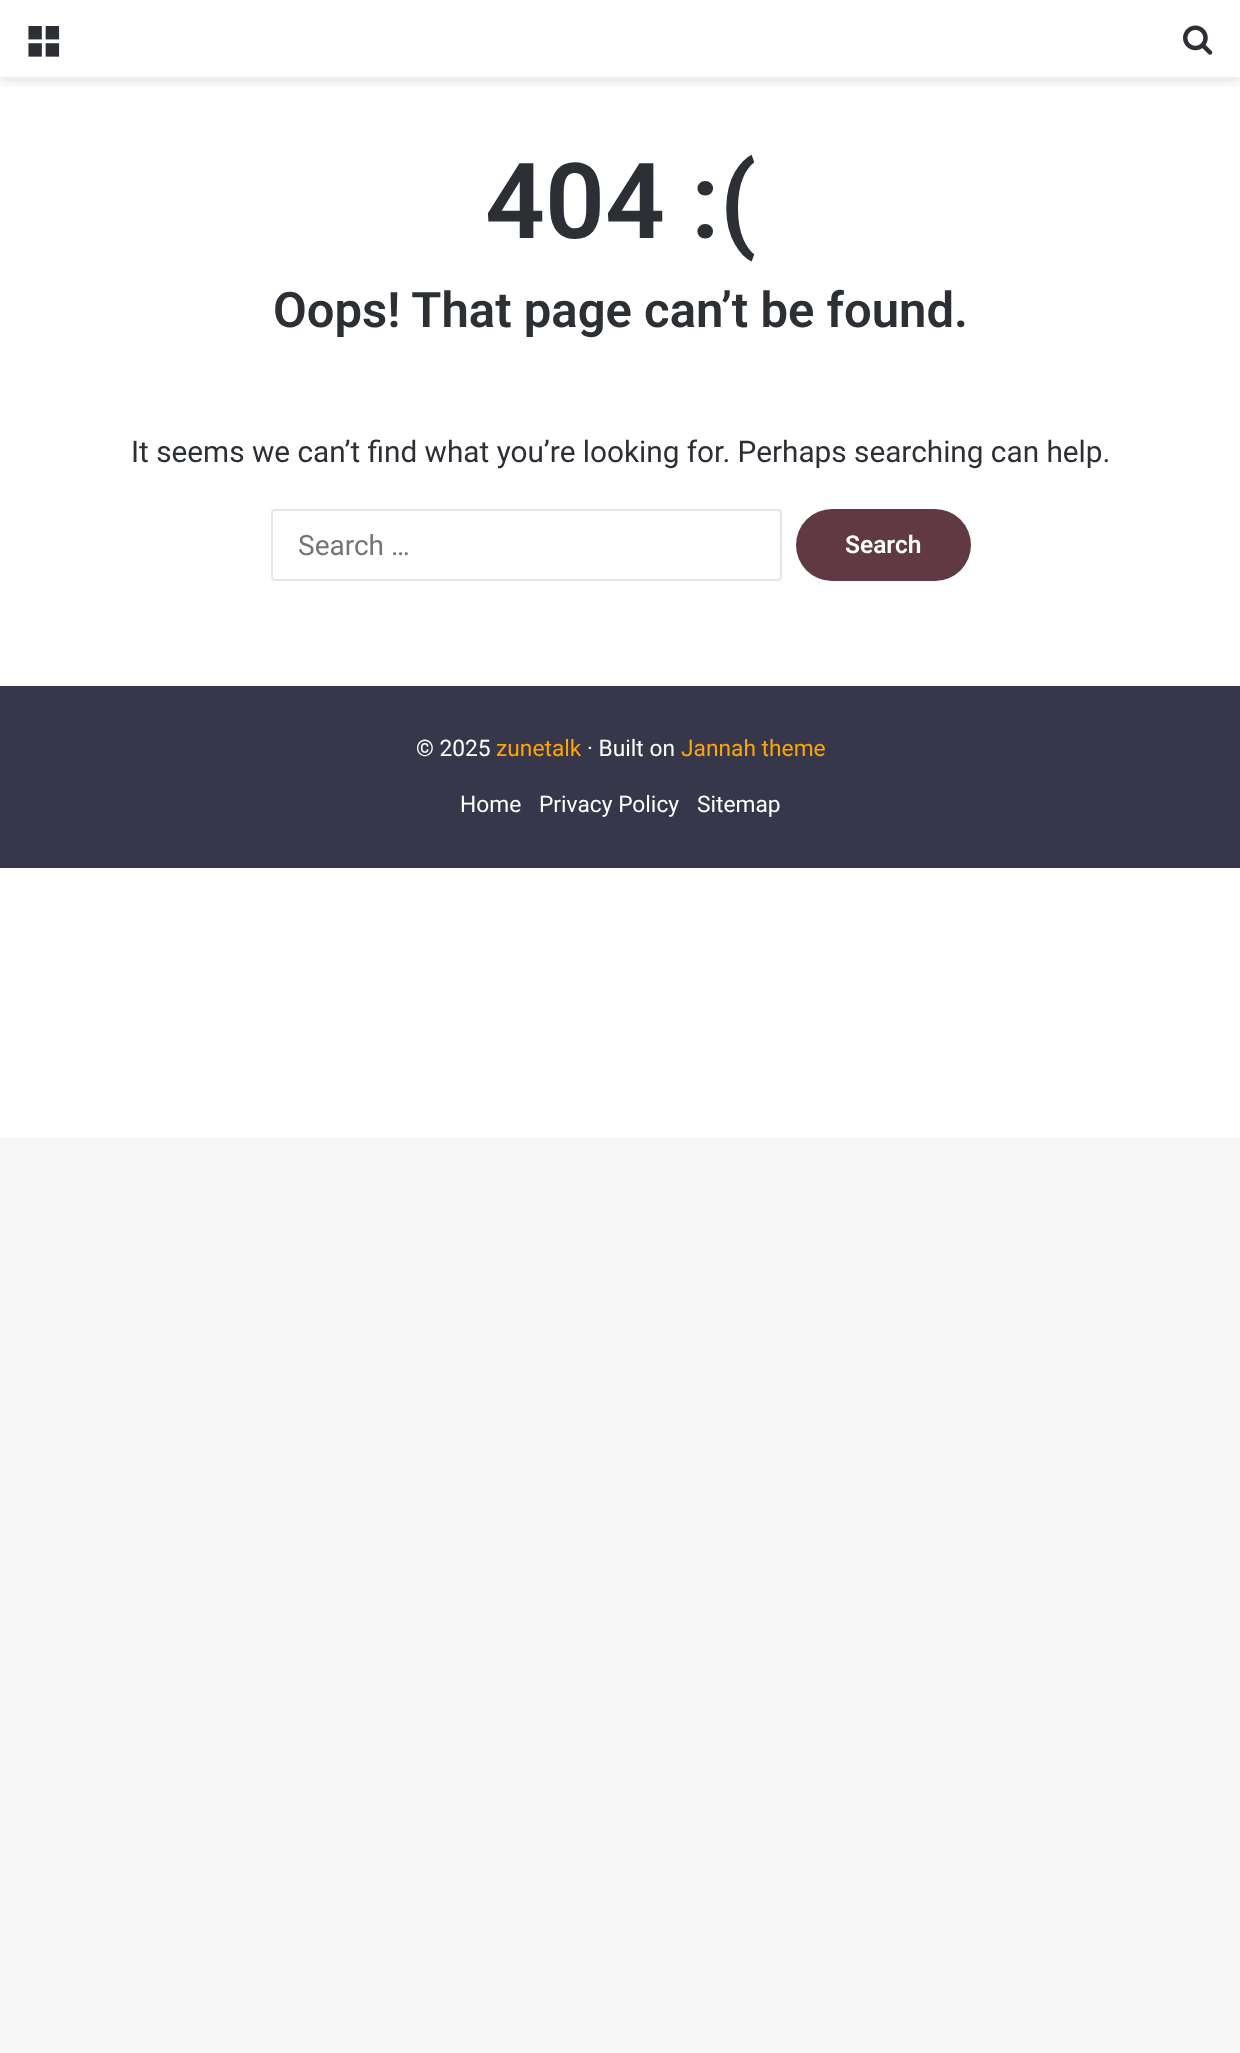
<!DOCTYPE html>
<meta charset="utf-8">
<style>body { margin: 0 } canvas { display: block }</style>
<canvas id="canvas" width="1240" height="2053"></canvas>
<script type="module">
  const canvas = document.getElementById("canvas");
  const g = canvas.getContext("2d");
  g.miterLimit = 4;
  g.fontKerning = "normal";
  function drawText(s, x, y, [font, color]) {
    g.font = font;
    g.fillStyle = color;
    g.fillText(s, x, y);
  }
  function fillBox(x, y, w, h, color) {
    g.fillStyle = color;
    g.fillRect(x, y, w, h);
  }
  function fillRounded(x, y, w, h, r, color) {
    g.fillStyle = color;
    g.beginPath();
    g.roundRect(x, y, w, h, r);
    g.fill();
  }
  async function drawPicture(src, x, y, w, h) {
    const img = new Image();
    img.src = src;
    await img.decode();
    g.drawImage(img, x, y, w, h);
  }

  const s1 = ["600 105px Roboto", "#2C2F34"];
  const s2 = ["600 49px Roboto", "#2C2F34"];
  const s3 = ["29.75px Roboto", "#2C2F34"];
  const s4 = ["28px Roboto", "#757575"];
  const s5 = ["600 24.5px Roboto", "#FFFFFF"];
  const s6 = ["22.75px Roboto", "#FFFFFF"];
  const s7 = ["22.75px Roboto", "#FFA500"];

  fillBox(0, 0, 1240, 2053, "#F7F7F7");
  fillBox(0, 0, 1240, 1138, "#FFFFFF");
  g.save();
  g.beginPath();
  g.rect(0, 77, 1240, 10);
  g.clip();
  g.fillStyle = "rgba(0, 0, 0, 0.1)";
  g.filter = "blur(6px)";
  g.beginPath();
  g.rect(0, 5, 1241, 77);
  g.fill();
  g.filter = "none";
  g.restore();
  await drawPicture("pic1.png", 28, 26, 32, 31);
  await drawPicture("pic2.png", 1183, 25, 30, 30);
  drawText("404 :(", 485, 238, s1);
  drawText("Oops! That page can’t be found.", 273, 327, s2);
  drawText("It seems we can’t find what you’re looking for. Perhaps searching can help.", 131, 462, s3);
  g.beginPath();
  g.roundRect(272, 510, 509, 70, 3);
  g.strokeStyle = "#E6E6E6";
  g.lineWidth = 2;
  g.stroke();
  drawText("Search …", 298, 555, s4);
  fillRounded(796, 509, 175, 72, 36, "#613942");
  drawText("Search", 845, 553, s5);
  fillBox(0, 686, 1240, 182, "#36374B");
  drawText("© 2025", 416, 756, s6);
  drawText("zunetalk", 496, 756, s7);
  drawText("· Built on", 587, 756, s6);
  drawText("Jannah theme", 681, 756, s7);
  drawText("Home", 460, 812, s6);
  drawText("Privacy Policy", 539, 812, s6);
  drawText("Sitemap", 697, 812, s6);
</script>
